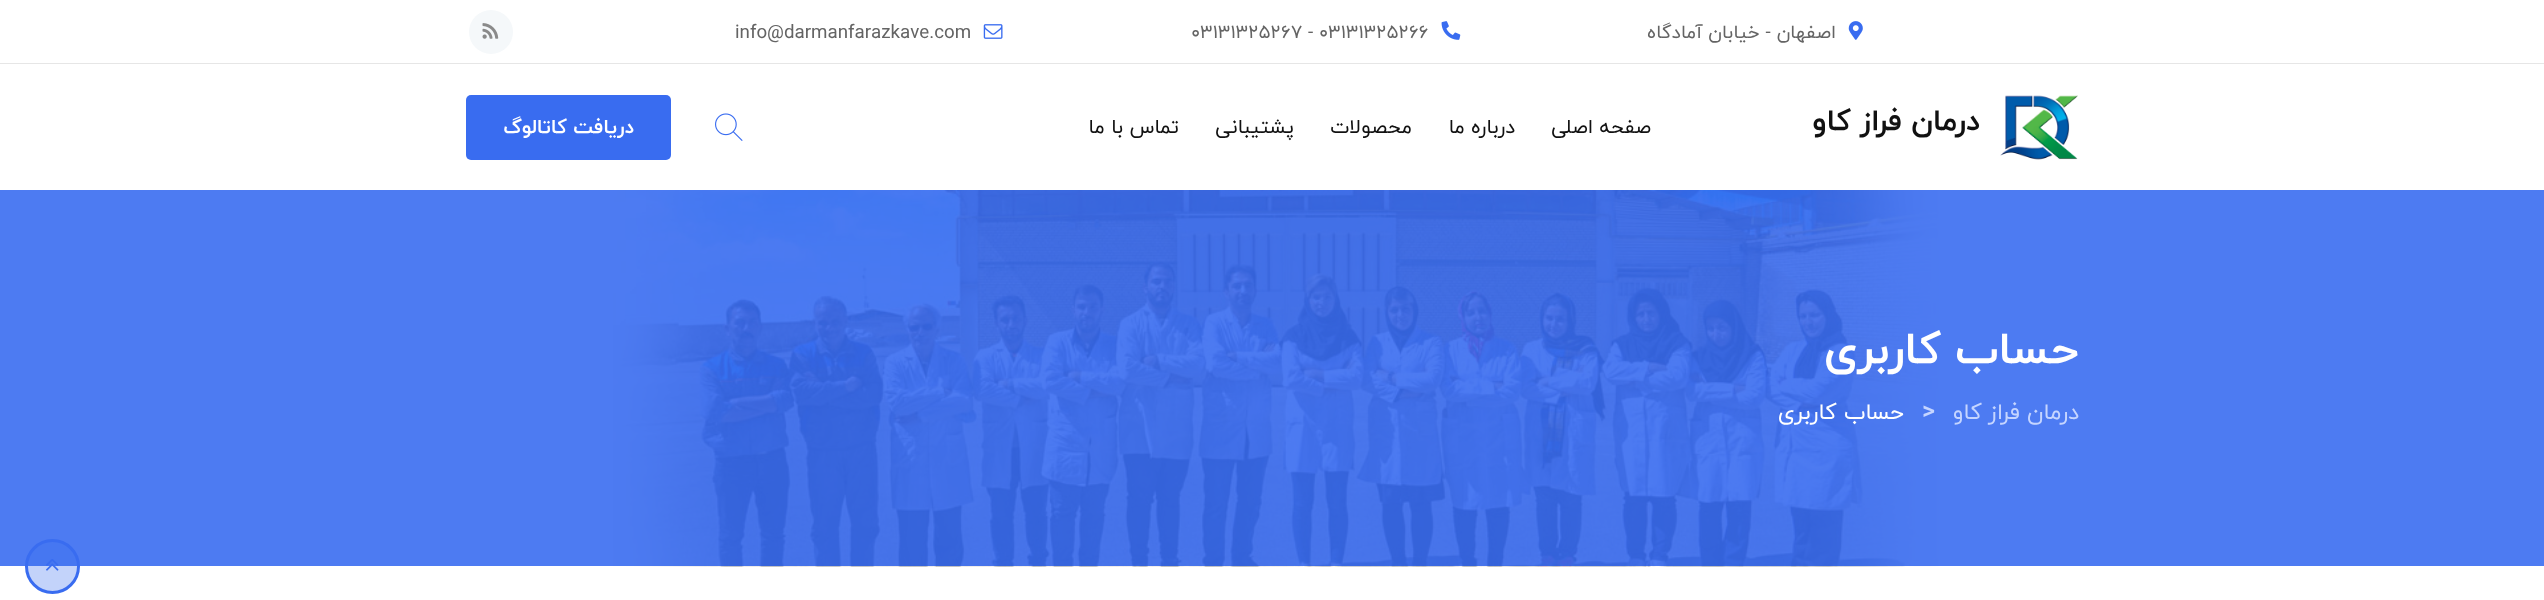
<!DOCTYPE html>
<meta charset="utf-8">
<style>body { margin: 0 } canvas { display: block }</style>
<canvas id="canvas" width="2544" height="600"></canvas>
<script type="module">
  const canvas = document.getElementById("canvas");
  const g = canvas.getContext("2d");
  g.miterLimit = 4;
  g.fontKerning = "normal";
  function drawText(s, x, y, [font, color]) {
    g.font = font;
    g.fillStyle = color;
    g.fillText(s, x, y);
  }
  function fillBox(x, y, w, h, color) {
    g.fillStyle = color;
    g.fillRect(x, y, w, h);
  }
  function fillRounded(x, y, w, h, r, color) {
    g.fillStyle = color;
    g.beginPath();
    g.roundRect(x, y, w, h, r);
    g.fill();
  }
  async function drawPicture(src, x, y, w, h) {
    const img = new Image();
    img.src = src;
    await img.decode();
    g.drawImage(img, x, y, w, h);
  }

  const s1 = ["18.75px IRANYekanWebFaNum", "#646464"];
  const s2 = ["bold 30px IRANYekanWebFaNum", "#111111"];
  const s3 = ["20px IRANYekanWebFaNum", "#111111"];
  const s4 = ["bold 20px IRANYekanWebFaNum", "#FFFFFF"];
  const s5 = ["bold 45px IRANYekanWebFaNum", "#FFFFFF"];
  const s6 = ["22.5px IRANYekanWebFaNum", "#C5D5FF"];
  const s7 = ["bold 25px IRANYekanWebFaNum", "#C5D5FF"];
  const s8 = ["22.5px IRANYekanWebFaNum", "#FFFFFF"];

  fillBox(0, 0, 2544, 600, "#FFFFFF");
  fillBox(0, 190, 2544, 376, "#4D7BF2");
  fillBox(0, 63, 2544, 1, "#E6E6E6");
  await drawPicture("pic1.png", 1848, 21, 15, 19);
  g.direction = "rtl";
  drawText("اصفهان - خیابان آمادگاه", 1836, 38, s1);
  await drawPicture("pic2.png", 1441, 21, 20, 19);
  g.direction = "ltr";
  drawText("- 03131325266", 1308, 38, s1);
  drawText("03131325267", 1191, 38, s1);
  await drawPicture("pic3.png", 983, 24, 20, 15);
  drawText("info@darmanfarazkave.com", 735, 38, s1);
  g.fillStyle = "#F5F8FA";
  g.beginPath();
  g.arc(491, 32, 22, 0, Math.PI * 2);
  g.fill();
  await drawPicture("pic4.png", 482, 23, 17, 16);
  await drawPicture("pic5.png", 2000, 95, 78, 65);
  g.direction = "rtl";
  drawText("درمان فراز کاو", 1980, 130, s2);
  drawText("صفحه اصلی", 1651, 133, s3);
  drawText("درباره ما", 1515, 133, s3);
  drawText("محصولات", 1412, 133, s3);
  drawText("پشتیبانی", 1294, 133, s3);
  drawText("تماس با ما", 1179, 133, s3);
  await drawPicture("pic6.png", 715, 113, 28, 28);
  fillRounded(466, 95, 205, 65, 5, "#396CF0");
  drawText("دریافت کاتالوگ", 634, 133, s4);
  await drawPicture("pic7.png", 613, 190, 1326, 377);
  drawText("حساب کاربری", 2079, 363, s5);
  drawText("درمان فراز کاو", 2079, 419, s6);
  g.direction = "ltr";
  drawText(">", 1922, 419, s7);
  g.direction = "rtl";
  drawText("حساب کاربری", 1904, 419, s8);
  g.fillStyle = "rgba(57, 108, 240, 0.3)";
  g.beginPath();
  g.arc(52.5, 566.5, 26, 0, Math.PI * 2);
  g.fill();
  g.strokeStyle = "#396CF0";
  g.lineWidth = 3;
  g.stroke();
  await drawPicture("pic8.png", 46, 559, 13, 12);
</script>
